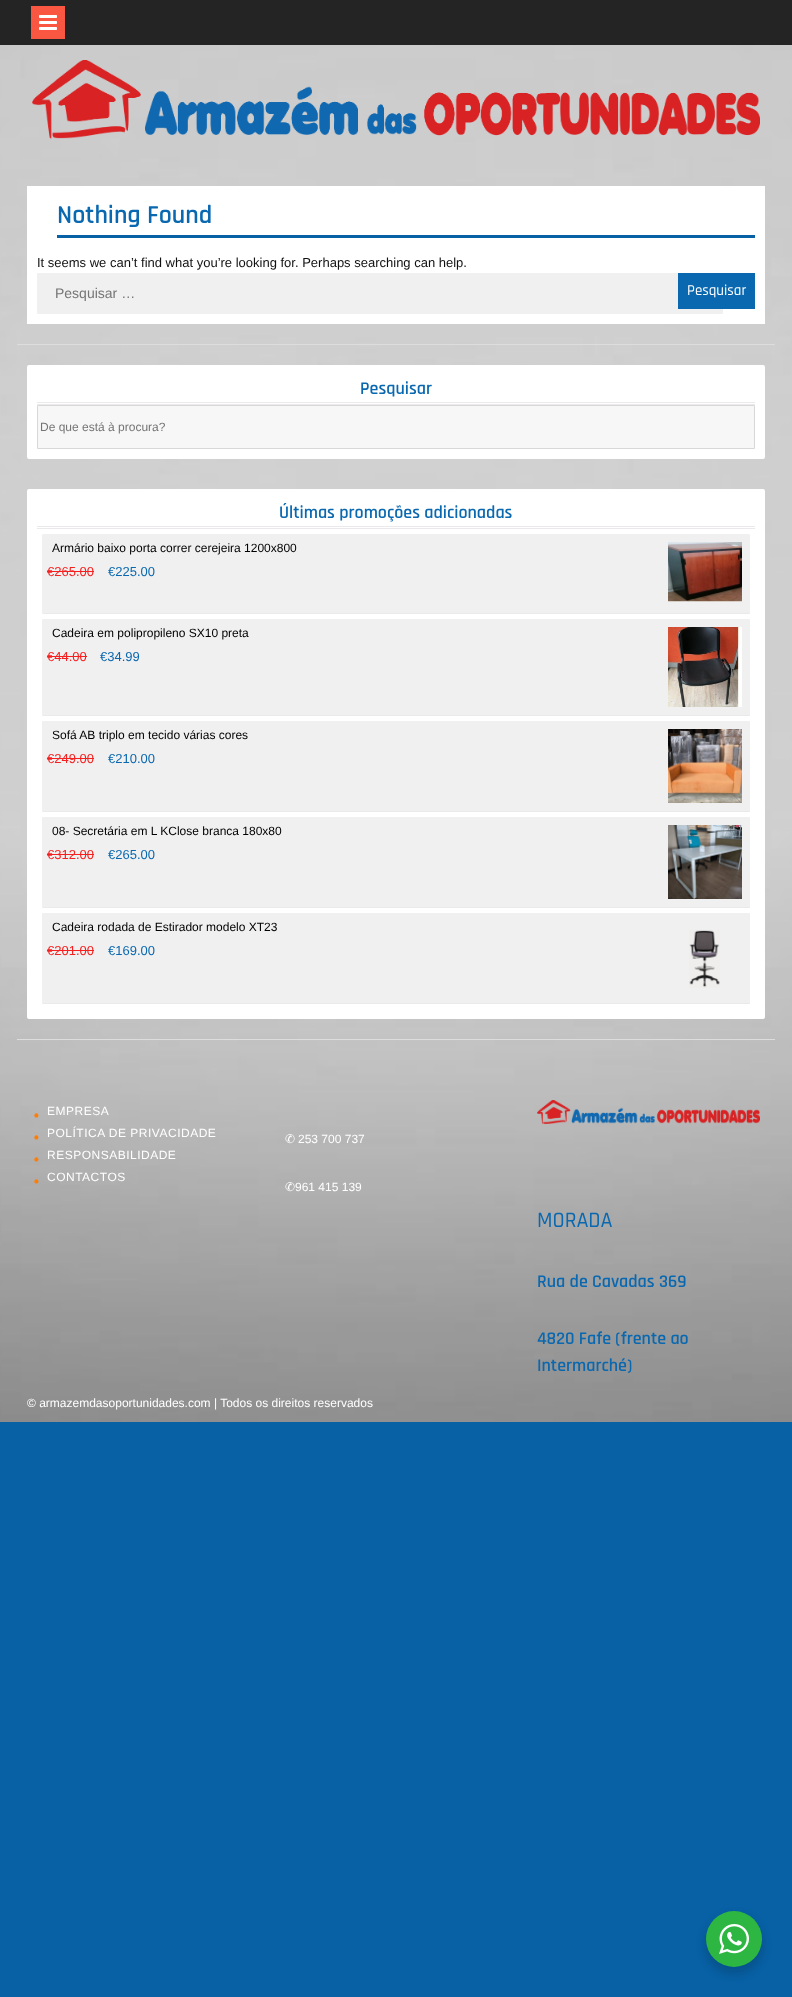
<!DOCTYPE html>
<meta charset="utf-8">
<style>body { margin: 0 } canvas { display: block }</style>
<canvas id="canvas" width="792" height="1997"></canvas>
<script type="module">
  const canvas = document.getElementById("canvas");
  const g = canvas.getContext("2d");
  g.miterLimit = 4;
  g.fontKerning = "normal";
  function drawText(s, x, y, [font, color]) {
    g.font = font;
    g.fillStyle = color;
    g.fillText(s, x, y);
  }
  function fillBox(x, y, w, h, color) {
    g.fillStyle = color;
    g.fillRect(x, y, w, h);
  }
  function fillRounded(x, y, w, h, r, color) {
    g.fillStyle = color;
    g.beginPath();
    g.roundRect(x, y, w, h, r);
    g.fill();
  }
  async function drawPicture(src, x, y, w, h) {
    const img = new Image();
    img.src = src;
    await img.decode();
    g.drawImage(img, x, y, w, h);
  }

  const s1 = ["600 26px Rajdhani", "#0968B0"];
  const s2 = ["13px Liberation Sans", "#111111"];
  const s3 = ["14px Liberation Sans", "#757575"];
  const s4 = ["500 15px Rajdhani", "#FFFFFF"];
  const s5 = ["600 18px Rajdhani", "#0968B0"];
  const s6 = ["12px Liberation Sans", "#757575"];
  const s7 = ["12px Liberation Sans", "#000000"];
  const s8 = ["13px Liberation Sans", "#F52121"];
  const s9 = ["13px Liberation Sans", "#0968B0"];
  const s10 = ["35px Liberation Serif", "#FF7D06"];
  const s11 = ["12px Liberation Sans", "#FFFFFF"];
  const s12 = ["12px DejaVu Sans", "#FFFFFF"];
  const s13 = ["500 22px Rajdhani", "#0968B0"];

  fillBox(0, 0, 792, 1997, "#0861A5");
  await drawPicture("pic1.png", 0, 45, 792, 1377);
  fillBox(0, 0, 792, 45, "#242424");
  fillBox(31, 6, 34, 33, "#FA5742");
  await drawPicture("pic2.png", 39, 15, 18, 15);
  await drawPicture("pic3.png", 32, 60, 728, 79);
  fillBox(17, 344, 758, 1, "#DDDDDD");
  fillBox(27, 186, 738, 138, "#FFFFFF");
  fillBox(57, 235, 698, 3, "#0861A5");
  drawText("Nothing Found", 57, 223, s1);
  drawText("It seems we can’t find what you’re looking for. Perhaps searching can help.", 37, 267, s2);
  fillRounded(37, 273, 686, 41, 1, "#F0F0F0");
  drawText("Pesquisar …", 55, 298, s3);
  fillBox(678, 273, 77, 36, "#0968B0");
  drawText("Pesquisar", 687, 295, s4);
  fillBox(17, 1039, 758, 1, "#DDDDDD");
  fillRounded(27, 365, 738, 94, 2, "#FFFFFF");
  fillBox(37, 402, 718, 1, "#EBE9EB");
  fillBox(37, 404, 718, 1, "#EBE9EB");
  drawText("Pesquisar", 360, 394, s5);
  g.fillStyle = "#F7F7F7";
  g.beginPath();
  g.rect(37.5, 405.5, 717, 43);
  g.fill();
  g.strokeStyle = "#D8D8D8";
  g.stroke();
  drawText("De que está à procura?", 40, 431, s6);
  fillRounded(27, 489, 738, 530, 2, "#FFFFFF");
  fillBox(37, 526, 718, 1, "#EBE9EB");
  fillBox(37, 528, 718, 1, "#EBE9EB");
  drawText("Últimas promoções adicionadas", 279, 518, s5);
  fillRounded(42, 534, 708, 80, 1, "#F1F0F0");
  fillBox(43, 613, 707, 1, "rgba(221, 221, 221, 0.3)");
  drawText("Armário baixo porta correr cerejeira 1200x800", 52, 552, s7);
  await drawPicture("pic4.png", 668, 542, 74, 60);
  drawText("€265.00", 47, 576, s8);
  fillBox(47, 571, 47, 1, "#F52121");
  drawText("€225.00", 108, 576, s9);
  fillRounded(42, 619, 708, 97, 1, "#F1F0F0");
  fillBox(43, 715, 707, 1, "rgba(221, 221, 221, 0.3)");
  drawText("Cadeira em polipropileno SX10 preta", 52, 637, s7);
  await drawPicture("pic5.png", 668, 627, 74, 80);
  drawText("€44.00", 47, 661, s8);
  fillBox(47, 656, 40, 1, "#F52121");
  drawText("€34.99", 100, 661, s9);
  fillRounded(42, 721, 708, 91, 1, "#F1F0F0");
  fillBox(43, 811, 707, 1, "rgba(221, 221, 221, 0.3)");
  drawText("Sofá AB triplo em tecido várias cores", 52, 739, s7);
  await drawPicture("pic6.png", 668, 729, 74, 74);
  drawText("€249.00", 47, 763, s8);
  fillBox(47, 758, 47, 1, "#F52121");
  drawText("€210.00", 108, 763, s9);
  fillRounded(42, 817, 708, 91, 1, "#F1F0F0");
  fillBox(43, 907, 707, 1, "rgba(221, 221, 221, 0.3)");
  drawText("08- Secretária em L KClose branca 180x80", 52, 835, s7);
  await drawPicture("pic7.png", 668, 825, 74, 74);
  drawText("€312.00", 47, 859, s8);
  fillBox(47, 854, 47, 1, "#F52121");
  drawText("€265.00", 108, 859, s9);
  fillRounded(42, 913, 708, 91, 1, "#F1F0F0");
  fillBox(43, 1003, 707, 1, "rgba(221, 221, 221, 0.3)");
  drawText("Cadeira rodada de Estirador modelo XT23", 52, 931, s7);
  await drawPicture("pic8.png", 689, 930, 31, 58);
  drawText("€201.00", 47, 955, s8);
  fillBox(47, 950, 47, 1, "#F52121");
  drawText("€169.00", 108, 955, s9);
  g.letterSpacing = "0.5px";
  drawText(".", 32, 1117, s10);
  drawText("EMPRESA", 47, 1115, s11);
  drawText(".", 32, 1139, s10);
  drawText("POLÍTICA DE PRIVACIDADE", 47, 1137, s11);
  drawText(".", 32, 1161, s10);
  drawText("RESPONSABILIDADE", 47, 1159, s11);
  drawText(".", 32, 1183, s10);
  drawText("CONTACTOS", 47, 1181, s11);
  g.letterSpacing = "0px";
  drawText("✆", 285, 1143, s12);
  drawText("253 700 737", 298, 1143, s11);
  drawText("✆", 285, 1191, s12);
  drawText("961 415 139", 295, 1191, s11);
  await drawPicture("pic9.png", 537, 1100, 223, 24);
  drawText("MORADA", 537, 1227, s13);
  drawText("Rua de Cavadas 369", 537, 1287, s5);
  drawText("4820 Fafe (frente ao", 537, 1344, s5);
  drawText("Intermarché)", 537, 1371, s5);
  drawText("© armazemdasoportunidades.com | Todos os direitos reservados", 27, 1407, s11);
  g.fillStyle = "rgba(0, 0, 0, 0.14)";
  g.filter = "blur(4px)";
  g.beginPath();
  g.roundRect(704, 1915, 60, 60, 30);
  g.fill();
  g.filter = "none";
  g.fillStyle = "#2DB742";
  g.beginPath();
  g.arc(734, 1939, 28, 0, Math.PI * 2);
  g.fill();
  await drawPicture("pic10.png", 719, 1924, 30, 30);
</script>
